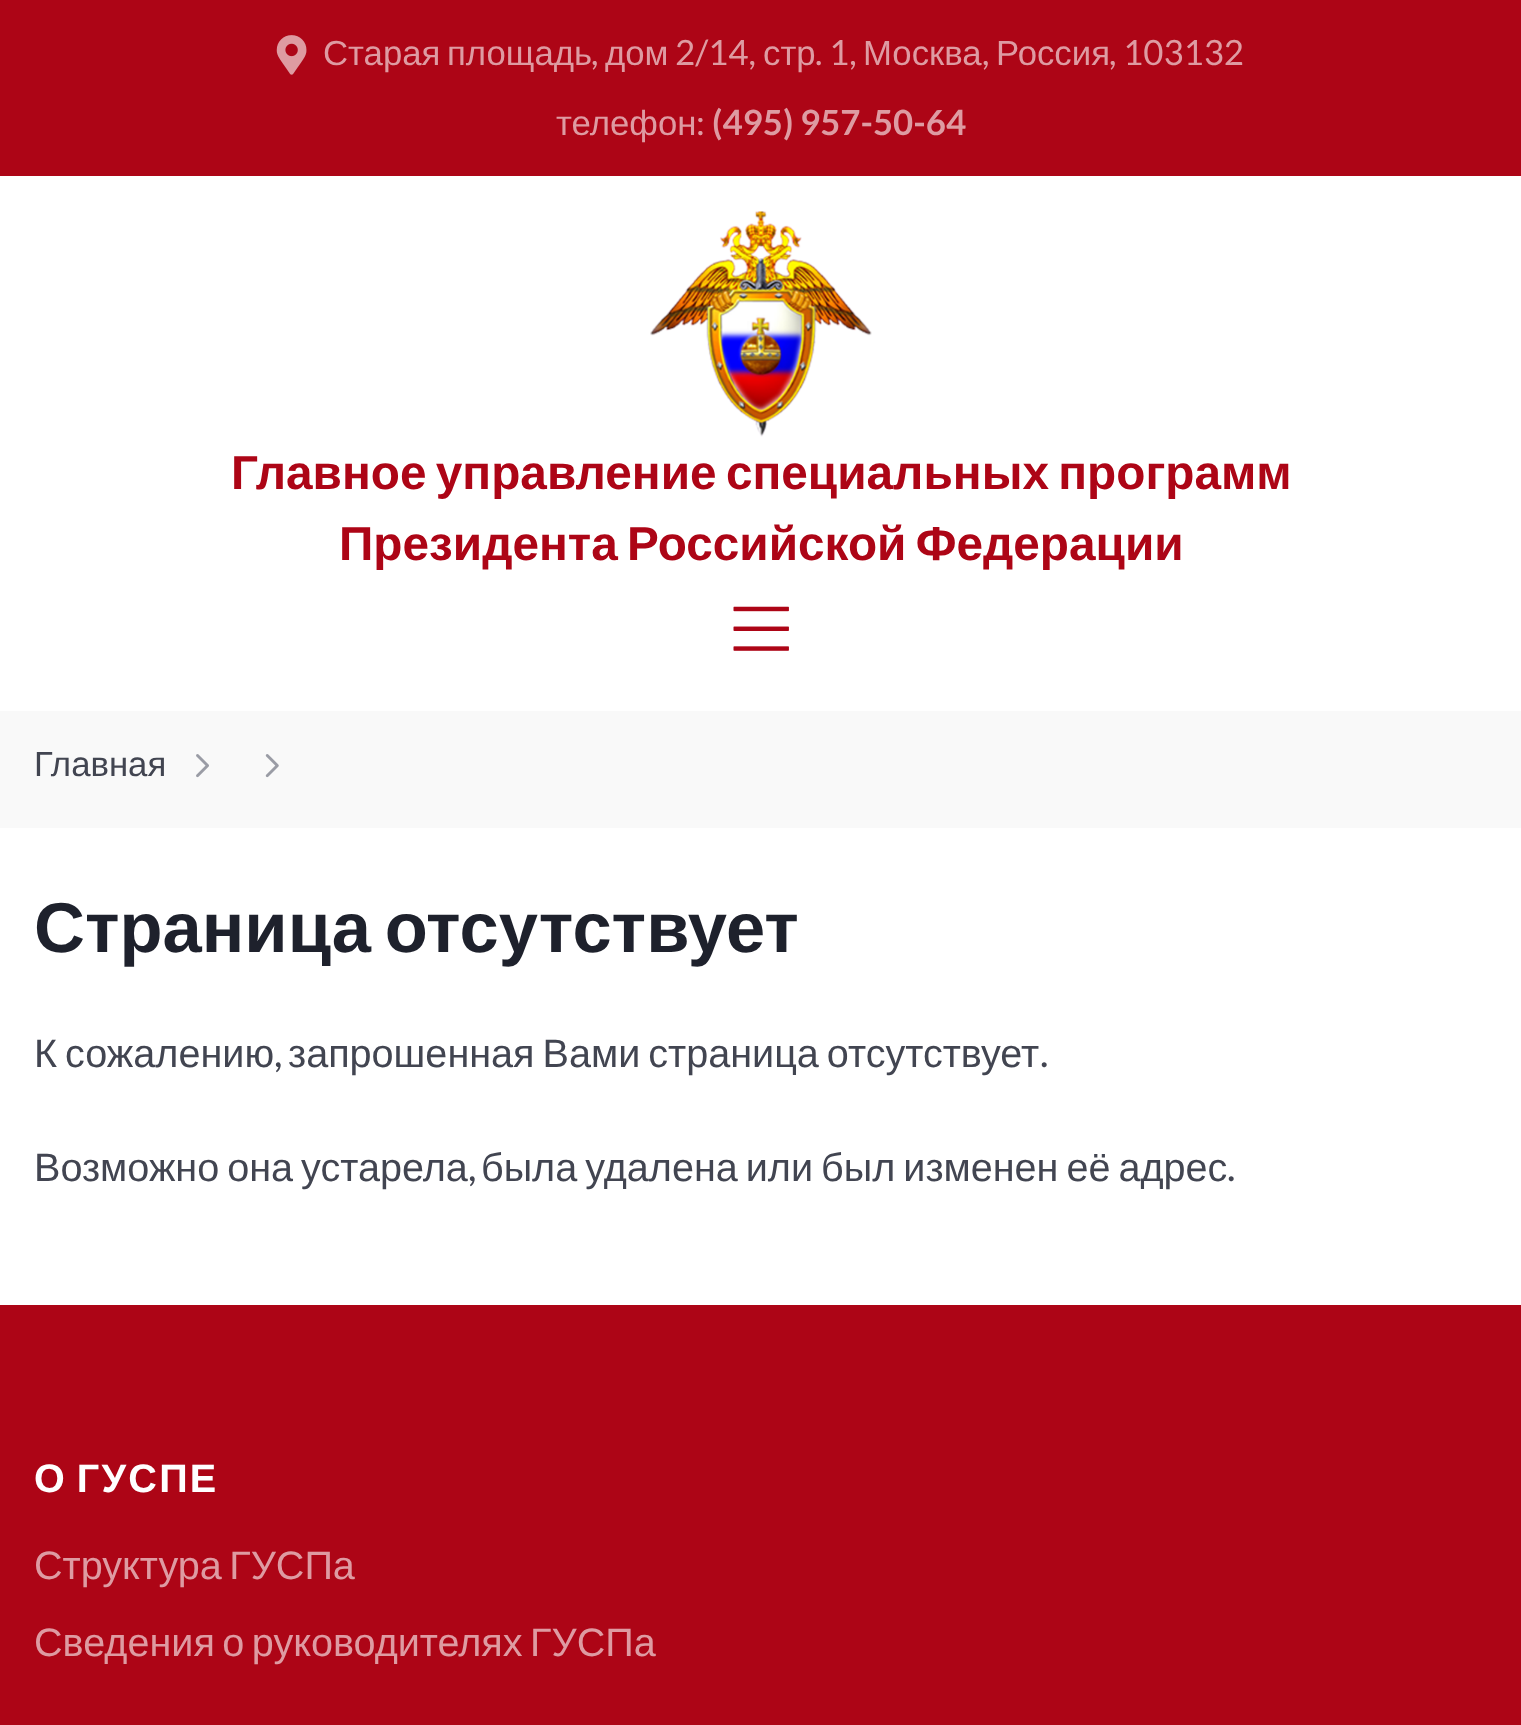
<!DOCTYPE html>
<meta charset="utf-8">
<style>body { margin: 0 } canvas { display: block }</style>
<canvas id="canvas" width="1521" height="1725"></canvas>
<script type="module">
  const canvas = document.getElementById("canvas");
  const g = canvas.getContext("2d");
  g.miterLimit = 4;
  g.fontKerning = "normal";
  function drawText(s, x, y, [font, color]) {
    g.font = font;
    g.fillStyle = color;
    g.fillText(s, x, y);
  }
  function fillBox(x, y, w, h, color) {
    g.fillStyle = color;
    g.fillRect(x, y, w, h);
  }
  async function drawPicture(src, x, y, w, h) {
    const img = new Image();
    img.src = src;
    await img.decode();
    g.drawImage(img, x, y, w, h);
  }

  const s1 = ["34.75px Liberation Sans", "#DE9BA2"];
  const s2 = ["34.75px Lato", "#DE9BA2"];
  const s3 = ["bold 34.75px Lato", "#DE9BA2"];
  const s4 = ["bold 47.75px Liberation Sans", "#AD0516"];
  const s5 = ["34.75px Liberation Sans", "#424551"];
  const s6 = ["bold 70.5px Liberation Sans", "#1E212C"];
  const s7 = ["39.6px Liberation Sans", "#424551"];
  const s8 = ["39.6px Lato", "#424551"];
  const s9 = ["bold 39.6px Liberation Sans", "#FFFFFF"];
  const s10 = ["39.6px Liberation Sans", "#DE9BA2"];

  fillBox(0, 0, 1521, 1725, "#FFFFFF");
  fillBox(0, 0, 1521, 176, "#AD0516");
  await drawPicture("pic1.png", 276, 35, 31, 40);
  drawText("Старая", 323, 65, s1);
  drawText("площадь", 447, 65, s1);
  drawText(",", 591, 65, s2);
  drawText("дом", 605, 65, s1);
  drawText("2/14,", 675, 65, s2);
  drawText("стр", 763, 65, s1);
  drawText(". 1,", 815, 65, s2);
  drawText("Москва", 863, 65, s1);
  drawText(",", 982, 65, s2);
  drawText("Россия", 996, 65, s1);
  drawText(", 103132", 1109, 65, s2);
  drawText("телефон", 556, 135, s1);
  drawText(":", 696, 135, s2);
  drawText("(495) 957-50-64", 712, 135, s3);
  await drawPicture("pic2.png", 650, 211, 222, 226);
  g.wordSpacing = "-4px";
  drawText("Главное управление специальных программ", 231, 489, s4);
  drawText("Президента Российской Федерации", 339, 560, s4);
  await drawPicture("pic3.png", 733, 606, 56, 45);
  fillBox(0, 711, 1521, 117, "#F9F9F9");
  g.wordSpacing = "0px";
  drawText("Главная", 34, 776, s5);
  await drawPicture("pic4.png", 196, 754, 13, 24);
  await drawPicture("pic5.png", 265, 754, 14, 24);
  g.wordSpacing = "-6px";
  drawText("Страница отсутствует", 34, 952, s6);
  g.wordSpacing = "-3px";
  drawText("К сожалению", 34, 1067, s7);
  g.wordSpacing = "0px";
  drawText(",", 274, 1067, s8);
  g.wordSpacing = "-3px";
  drawText("запрошенная Вами страница отсутствует", 288, 1067, s7);
  g.wordSpacing = "0px";
  drawText(".", 1040, 1067, s8);
  g.wordSpacing = "-3px";
  drawText("Возможно она устарела", 34, 1181, s7);
  g.wordSpacing = "0px";
  drawText(",", 468, 1181, s8);
  g.wordSpacing = "-3px";
  drawText("была удалена или был изменен её адрес", 481, 1181, s7);
  g.wordSpacing = "0px";
  drawText(".", 1227, 1181, s8);
  fillBox(0, 1305, 1521, 420, "#AD0516");
  g.letterSpacing = "2.25px";
  g.wordSpacing = "-3.5px";
  drawText("О ГУСПЕ", 34, 1492, s9);
  g.letterSpacing = "0px";
  drawText("Структура ГУСПа", 34, 1579, s10);
  drawText("Сведения о руководителях ГУСПа", 34, 1656, s10);
</script>
